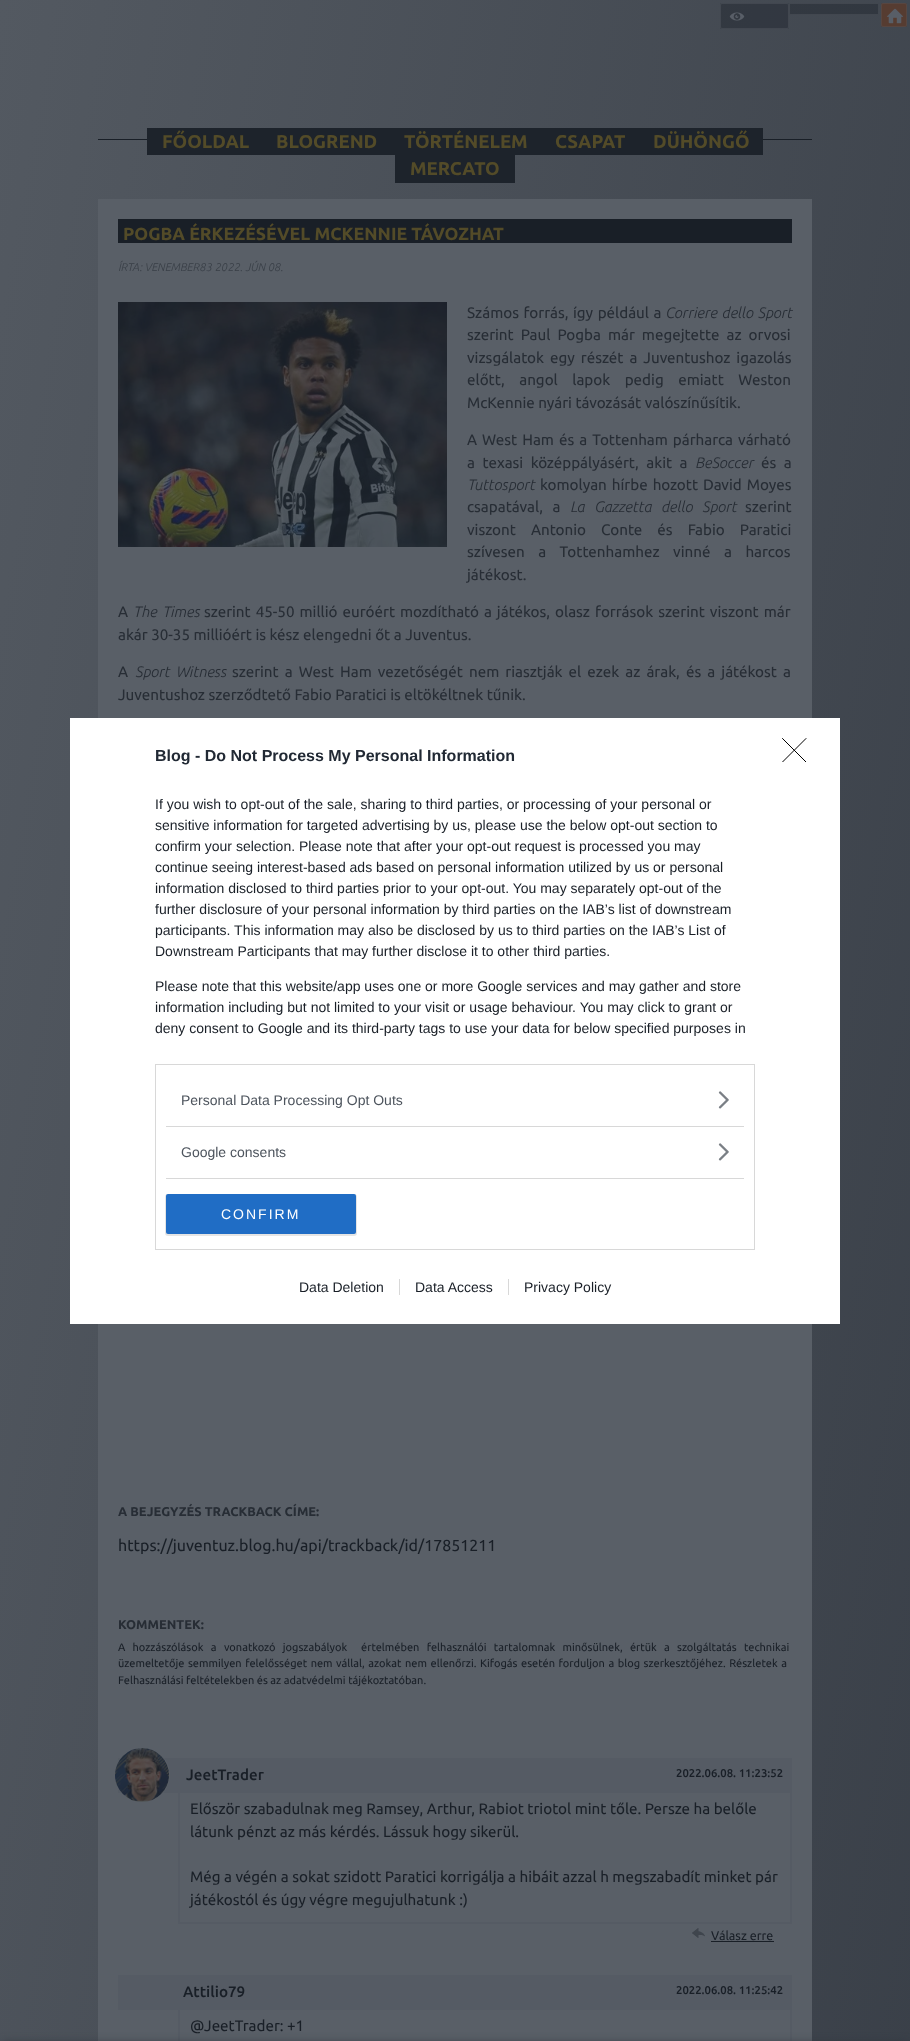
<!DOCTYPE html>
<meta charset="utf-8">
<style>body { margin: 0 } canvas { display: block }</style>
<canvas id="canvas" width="910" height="2041"></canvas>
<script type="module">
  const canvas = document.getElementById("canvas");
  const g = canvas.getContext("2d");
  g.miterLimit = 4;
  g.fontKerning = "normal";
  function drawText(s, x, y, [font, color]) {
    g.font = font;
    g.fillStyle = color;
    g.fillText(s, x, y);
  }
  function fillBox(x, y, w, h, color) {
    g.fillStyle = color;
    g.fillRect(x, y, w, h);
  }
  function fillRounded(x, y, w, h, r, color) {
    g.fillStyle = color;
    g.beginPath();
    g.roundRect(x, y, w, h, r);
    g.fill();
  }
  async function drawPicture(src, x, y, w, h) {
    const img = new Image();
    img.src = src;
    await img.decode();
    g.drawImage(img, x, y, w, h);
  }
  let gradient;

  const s1 = ["bold 18.5px Ubuntu", "#534B28"];
  const s2 = ["bold 17.6px Ubuntu", "#534B28"];
  const s3 = ["italic 300 11.25px Ubuntu", "#393F47"];
  const s4 = ["15.2px Ubuntu", "#272D35"];
  const s5 = ["italic 300 15.2px Ubuntu", "#272D35"];
  const s6 = ["bold 12.75px Ubuntu", "#272D35"];
  const s7 = ["16px Ubuntu", "#191F27"];
  const s8 = ["11px Ubuntu", "#191F27"];
  const s9 = ["500 15.2px Ubuntu", "#191F27"];
  const s10 = ["500 11.25px Ubuntu", "#191F27"];
  const s11 = ["15.2px Ubuntu", "#191F27"];
  const s12 = ["12.5px Ubuntu", "#191F27"];
  const s13 = ["bold 16px Liberation Sans", "#212934"];
  const s14 = ["14px Liberation Sans", "#191F27"];
  const s15 = ["14px Liberation Sans", "#4D545D"];
  const s16 = ["14px Liberation Sans", "#FFFFFF"];

  fillBox(0, 0, 910, 2041, "#FFFFFF");
  gradient = g.createLinearGradient(-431, 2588, 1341, 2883);
  gradient.addColorStop(0, "#535961");
  gradient.addColorStop(1, "#2F353E");
  g.fillStyle = gradient;
  g.fillRect(0, 0, 910, 2041);
  gradient = g.createLinearGradient(-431, 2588, 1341, 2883);
  gradient.addColorStop(0, "#3C424A");
  gradient.addColorStop(1, "#262C35");
  g.fillStyle = gradient;
  g.fillRect(789, 3, 90, 12);
  fillRounded(720, 3, 69, 26, 2, "rgba(25, 31, 39, 0.4)");
  g.beginPath();
  g.roundRect(720.5, 3.5, 68, 25, 1.5);
  g.strokeStyle = "rgba(89, 95, 103, 0.4)";
  g.stroke();
  await drawPicture("pic1.png", 729, 12, 16, 9);
  g.strokeRect(789.5, 3.5, 89, 11);
  fillRounded(881, 3, 26, 24, 2, "#563C31");
  g.beginPath();
  g.roundRect(881.5, 3.5, 25, 23, 1.5);
  g.strokeStyle = "rgba(89, 95, 103, 0.3)";
  g.stroke();
  await drawPicture("pic2.png", 886, 8, 18, 16);
  fillBox(98, 139, 714, 1, "#191F27");
  fillBox(147, 128, 616, 27, "#1D232B");
  drawText("FŐOLDAL", 162, 148, s1);
  drawText("BLOGREND", 276, 148, s1);
  drawText("TÖRTÉNELEM", 404, 148, s1);
  drawText("CSAPAT", 555, 148, s1);
  drawText("DÜHÖNGŐ", 653, 148, s1);
  fillBox(395, 155, 120, 28, "#1D232B");
  drawText("MERCATO", 410, 175, s1);
  fillBox(98, 199, 714, 1842, "#595F67");
  fillBox(118, 219, 674, 24, "#191F27");
  drawText("POGBA ÉRKEZÉSÉVEL MCKENNIE TÁVOZHAT", 123, 240, s2);
  drawText("ÍRTA: VENEMBER83 2022. JÚN 08.", 118, 271, s3);
  await drawPicture("pic3.png", 118, 302, 329, 245);
  g.wordSpacing = "1px";
  drawText("Számos forrás, így például a", 467, 318, s4);
  drawText("Corriere dello Sport", 665, 318, s5);
  g.wordSpacing = "3.5px";
  drawText("szerint Paul Pogba már megejtette az orvosi", 467, 340, s4);
  g.wordSpacing = "2.5px";
  drawText("vizsgálatok egy részét a Juventushoz igazolás", 467, 363, s4);
  g.wordSpacing = "11px";
  drawText("előtt, angol lapok pedig emiatt Weston", 467, 385, s4);
  g.wordSpacing = "0px";
  drawText("McKennie nyári távozását valószínűsítik.", 467, 408, s4);
  g.wordSpacing = "1.5px";
  drawText("A West Ham és a Tottenham párharca várható", 467, 445, s4);
  g.wordSpacing = "4px";
  drawText("a texasi középpályásért, akit a", 467, 468, s4);
  g.wordSpacing = "0px";
  drawText("BeSoccer", 695, 468, s5);
  g.wordSpacing = "4px";
  drawText("és a", 761, 468, s4);
  g.wordSpacing = "0px";
  drawText("Tuttosport", 467, 490, s5);
  g.wordSpacing = "1.5px";
  drawText("komolyan hírbe hozott David Moyes", 540, 490, s4);
  g.wordSpacing = "6px";
  drawText("csapatával, a", 467, 512, s4);
  drawText("La Gazzetta dello Sport", 570, 512, s5);
  g.wordSpacing = "0px";
  drawText("szerint", 745, 512, s4);
  g.wordSpacing = "11.5px";
  drawText("viszont Antonio Conte és Fabio Paratici", 467, 535, s4);
  g.wordSpacing = "10px";
  drawText("szívesen a Tottenhamhez vinné a harcos", 467, 557, s4);
  g.wordSpacing = "0px";
  drawText("játékost.", 467, 580, s4);
  drawText("A", 118, 617, s4);
  g.wordSpacing = "2px";
  drawText("The Times", 133, 617, s5);
  g.wordSpacing = "1.5px";
  drawText("szerint 45-50 millió euróért mozdítható a játékos, olasz források szerint viszont már", 204, 617, s4);
  g.wordSpacing = "0px";
  drawText("akár 30-35 millióért is kész elengedni őt a Juventus.", 118, 640, s4);
  drawText("A", 118, 677, s4);
  g.wordSpacing = "2.6px";
  drawText("Sport Witness", 135, 677, s5);
  drawText("szerint a West Ham vezetőségét nem riasztják el ezek az árak, és a játékost a", 232, 677, s4);
  g.wordSpacing = "0px";
  drawText("Juventushoz szerződtető Fabio Paratici is eltökéltnek tűnik.", 118, 700, s4);
  drawText("A BEJEGYZÉS TRACKBACK CÍME:", 118, 1516, s6);
  drawText("https://juventuz.blog.hu/api/trackback/id/17851211", 118, 1551, s7);
  drawText("KOMMENTEK:", 118, 1629, s6);
  g.wordSpacing = "4.75px";
  drawText("A hozzászólások a", 118, 1651, s8);
  drawText("vonatkozó jogszabályok", 224, 1651, s8);
  drawText("értelmében felhasználói tartalomnak minősülnek, értük a", 361, 1651, s8);
  drawText("szolgáltatás technikai", 677, 1651, s8);
  g.wordSpacing = "1px";
  drawText("üzemeltetője semmilyen felelősséget nem vállal, azokat nem ellenőrzi. Kifogás esetén forduljon a blog szerkesztőjéhez. Részletek a", 118, 1667, s8);
  g.wordSpacing = "0px";
  drawText("Felhasználási feltételekben és az adatvédelmi tájékoztatóban.", 118, 1684, s8);
  fillBox(118, 1758, 674, 35, "#555B64");
  g.beginPath();
  g.arc(142, 1775, 27.5, 0, Math.PI * 2);
  g.strokeStyle = "#595F67";
  g.stroke();
  await drawPicture("pic4.png", 115, 1748, 54, 54);
  drawText("JeetTrader", 186, 1780, s9);
  drawText("2022.06.08. 11:23:52", 676, 1777, s10);
  g.strokeStyle = "#555B64";
  g.lineWidth = 2;
  g.strokeRect(179, 1792, 612, 131);
  drawText("Először szabadulnak meg Ramsey, Arthur, Rabiot triotol mint tőle. Persze ha belőle", 190, 1814, s11);
  drawText("látunk pénzt az más kérdés. Lássuk hogy sikerül.", 190, 1837, s11);
  drawText("Még a végén a sokat szidott Paratici korrigálja a hibáit azzal h megszabadít minket pár", 190, 1882, s11);
  drawText("játékostól és úgy végre megujulhatunk :)", 190, 1905, s11);
  await drawPicture("pic5.png", 692, 1928, 13, 10);
  drawText("Válasz erre", 711, 1940, s12);
  fillBox(711, 1941, 63, 1, "#191F27");
  fillBox(118, 1975, 674, 35, "#555B64");
  drawText("Attilio79", 183, 1997, s9);
  drawText("2022.06.08. 11:25:42", 676, 1994, s10);
  g.strokeRect(179, 2009, 612, 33);
  drawText("@JeetTrader: +1", 190, 2031, s11);
  fillBox(70, 718, 770, 606, "#FFFFFF");
  drawText("Blog - Do Not Process My Personal Information", 155, 761, s13);
  drawText("If you wish to opt-out of the sale, sharing to third parties, or processing of your personal or", 155, 809, s14);
  drawText("sensitive information for targeted advertising by us, please use the below opt-out section to", 155, 830, s14);
  drawText("confirm your selection. Please note that after your opt-out request is processed you may", 155, 851, s14);
  drawText("continue seeing interest-based ads based on personal information utilized by us or personal", 155, 872, s14);
  drawText("information disclosed to third parties prior to your opt-out. You may separately opt-out of the", 155, 893, s14);
  drawText("further disclosure of your personal information by third parties on the IAB’s list of downstream", 155, 914, s14);
  drawText("participants. This information may also be disclosed by us to third parties on the IAB’s List of", 155, 935, s14);
  drawText("Downstream Participants that may further disclose it to other third parties.", 155, 956, s14);
  drawText("Please note that this website/app uses one or more Google services and may gather and store", 155, 991, s14);
  drawText("information including but not limited to your visit or usage behaviour. You may click to grant or", 155, 1012, s14);
  drawText("deny consent to Google and its third-party tags to use your data for below specified purposes in", 155, 1033, s14);
  g.strokeStyle = "#D8D8D8";
  g.lineWidth = 1;
  g.strokeRect(155.5, 1064.5, 599, 185);
  fillBox(166, 1126, 578, 1, "#D8D8D8");
  drawText("Personal Data Processing Opt Outs", 181, 1105, s15);
  await drawPicture("pic6.png", 718, 1091, 11, 18);
  fillBox(166, 1178, 578, 1, "#D8D8D8");
  drawText("Google consents", 181, 1157, s15);
  await drawPicture("pic6.png", 718, 1143, 11, 18);
  g.fillStyle = "rgba(0, 0, 0, 0.1)";
  g.filter = "blur(0.5px)";
  g.beginPath();
  g.roundRect(165, 1194, 192, 42, 3);
  g.fill();
  g.filter = "none";
  fillRounded(166, 1194, 190, 40, 2, "#206DC5");
  g.letterSpacing = "2px";
  drawText("CONFIRM", 221, 1219, s16);
  g.save();
  g.beginPath();
  g.rect(782, 738, 25, 24);
  g.clip();
  g.beginPath();
  g.moveTo(782.5, 738.5);
  g.lineTo(806, 762);
  g.moveTo(806, 738.5);
  g.lineTo(782.5, 762);
  g.strokeStyle = "#000000";
  g.lineCap = "round";
  g.lineJoin = "round";
  g.stroke();
  g.restore();
  g.letterSpacing = "0px";
  drawText("Data Deletion", 299, 1292, s14);
  drawText("Data Access", 415, 1292, s14);
  fillBox(399, 1279, 1, 16, "#D8D8D8");
  drawText("Privacy Policy", 524, 1292, s14);
  fillBox(508, 1279, 1, 16, "#D8D8D8");
  g.fillStyle = "rgba(44, 50, 58, 0.8)";
  g.filter = "blur(5px)";
  g.beginPath();
  g.rect(2, 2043, 906, 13);
  g.fill();
  g.filter = "none";
</script>
